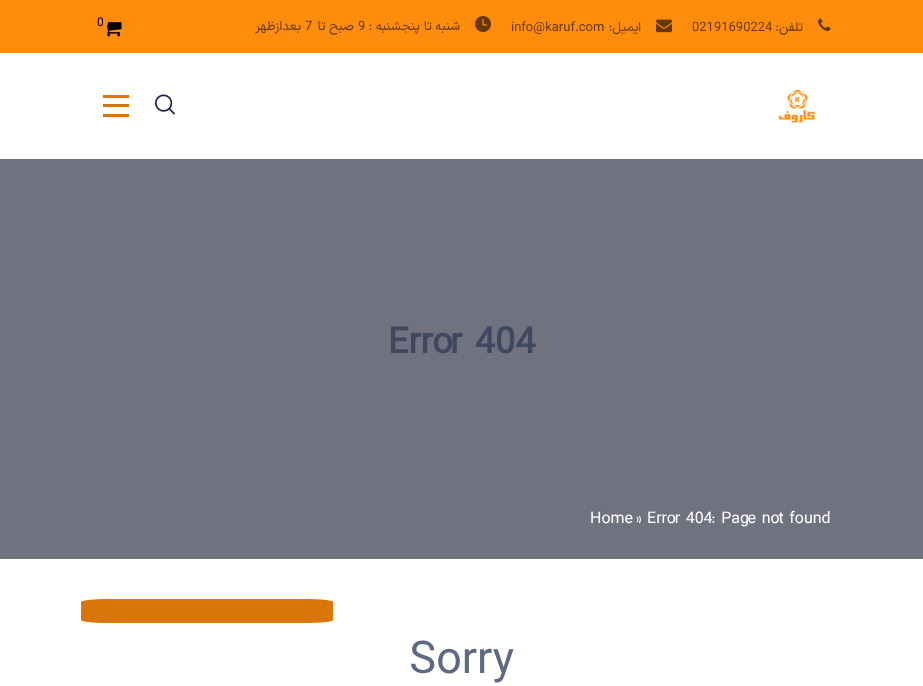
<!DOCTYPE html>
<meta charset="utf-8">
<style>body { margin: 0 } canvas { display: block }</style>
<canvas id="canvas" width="923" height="686"></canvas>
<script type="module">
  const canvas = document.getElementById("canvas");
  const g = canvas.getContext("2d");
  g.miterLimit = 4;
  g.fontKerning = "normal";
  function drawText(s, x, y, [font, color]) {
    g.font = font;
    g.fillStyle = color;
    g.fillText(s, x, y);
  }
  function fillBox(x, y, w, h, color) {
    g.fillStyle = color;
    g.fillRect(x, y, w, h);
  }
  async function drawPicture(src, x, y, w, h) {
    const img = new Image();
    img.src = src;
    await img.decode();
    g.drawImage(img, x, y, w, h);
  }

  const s1 = ["12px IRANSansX", "#000000"];
  const s2 = ["13px IRANSansX", "#663805"];
  const s3 = ["bold 36px IRANSansX", "#3F485D"];
  const s4 = ["16px IRANSansX", "#FFFFFF"];
  const s5 = ["45px IRANSansX", "#5D6881"];

  fillBox(0, 0, 923, 686, "#FFFFFF");
  fillBox(0, 0, 923, 53, "#FE8D0D");
  await drawPicture("pic1.png", 106, 21, 16, 16);
  g.beginPath();
  g.arc(100.5, 22.5, 7.5, 0, Math.PI * 2);
  g.fill();
  drawText("0", 97, 26, s1);
  g.direction = "rtl";
  drawText("بعدازظهر", 301, 30, s2);
  g.direction = "ltr";
  drawText("7", 305, 30, s2);
  g.direction = "rtl";
  drawText("صبح تا", 354, 30, s2);
  g.direction = "ltr";
  drawText("9", 358, 30, s2);
  g.direction = "rtl";
  drawText("شنبه تا پنجشنبه :", 460, 30, s2);
  await drawPicture("pic2.png", 475, 16, 16, 16);
  g.direction = "ltr";
  drawText("info@karuf.com", 511, 31, s2);
  g.direction = "rtl";
  drawText("ایمیل:", 641, 31, s2);
  await drawPicture("pic3.png", 656, 19, 16, 14);
  g.direction = "ltr";
  drawText("02191690224", 692, 31, s2);
  g.direction = "rtl";
  drawText("تلفن:", 803, 31, s2);
  await drawPicture("pic4.png", 818, 18, 13, 13);
  fillBox(103, 95, 26, 3, "#DA7607");
  fillBox(103, 104, 26, 3, "#DA7607");
  fillBox(103, 114, 26, 3, "#DA7607");
  await drawPicture("pic5.png", 155, 94, 20, 21);
  await drawPicture("pic6.png", 778, 89, 38, 34);
  fillBox(0, 159, 923, 400, "#717280");
  g.direction = "ltr";
  drawText("Error 404", 388, 353, s3);
  drawText("Home", 590, 523, s4);
  drawText("» Error 404: Page not found", 637, 523, s4);
  g.fillStyle = "#DA7607";
  g.beginPath();
  g.moveTo(111, 599);
  g.lineTo(303, 599);
  g.bezierCurveTo(319, 599, 333, 600, 333, 602);
  g.lineTo(333, 620);
  g.bezierCurveTo(333, 622, 319, 623, 303, 623);
  g.lineTo(111, 623);
  g.bezierCurveTo(95, 623, 81, 622, 81, 620);
  g.lineTo(81, 602);
  g.bezierCurveTo(81, 600, 95, 599, 111, 599);
  g.closePath();
  g.fill();
  drawText("Sorry", 409, 673, s5);
</script>
